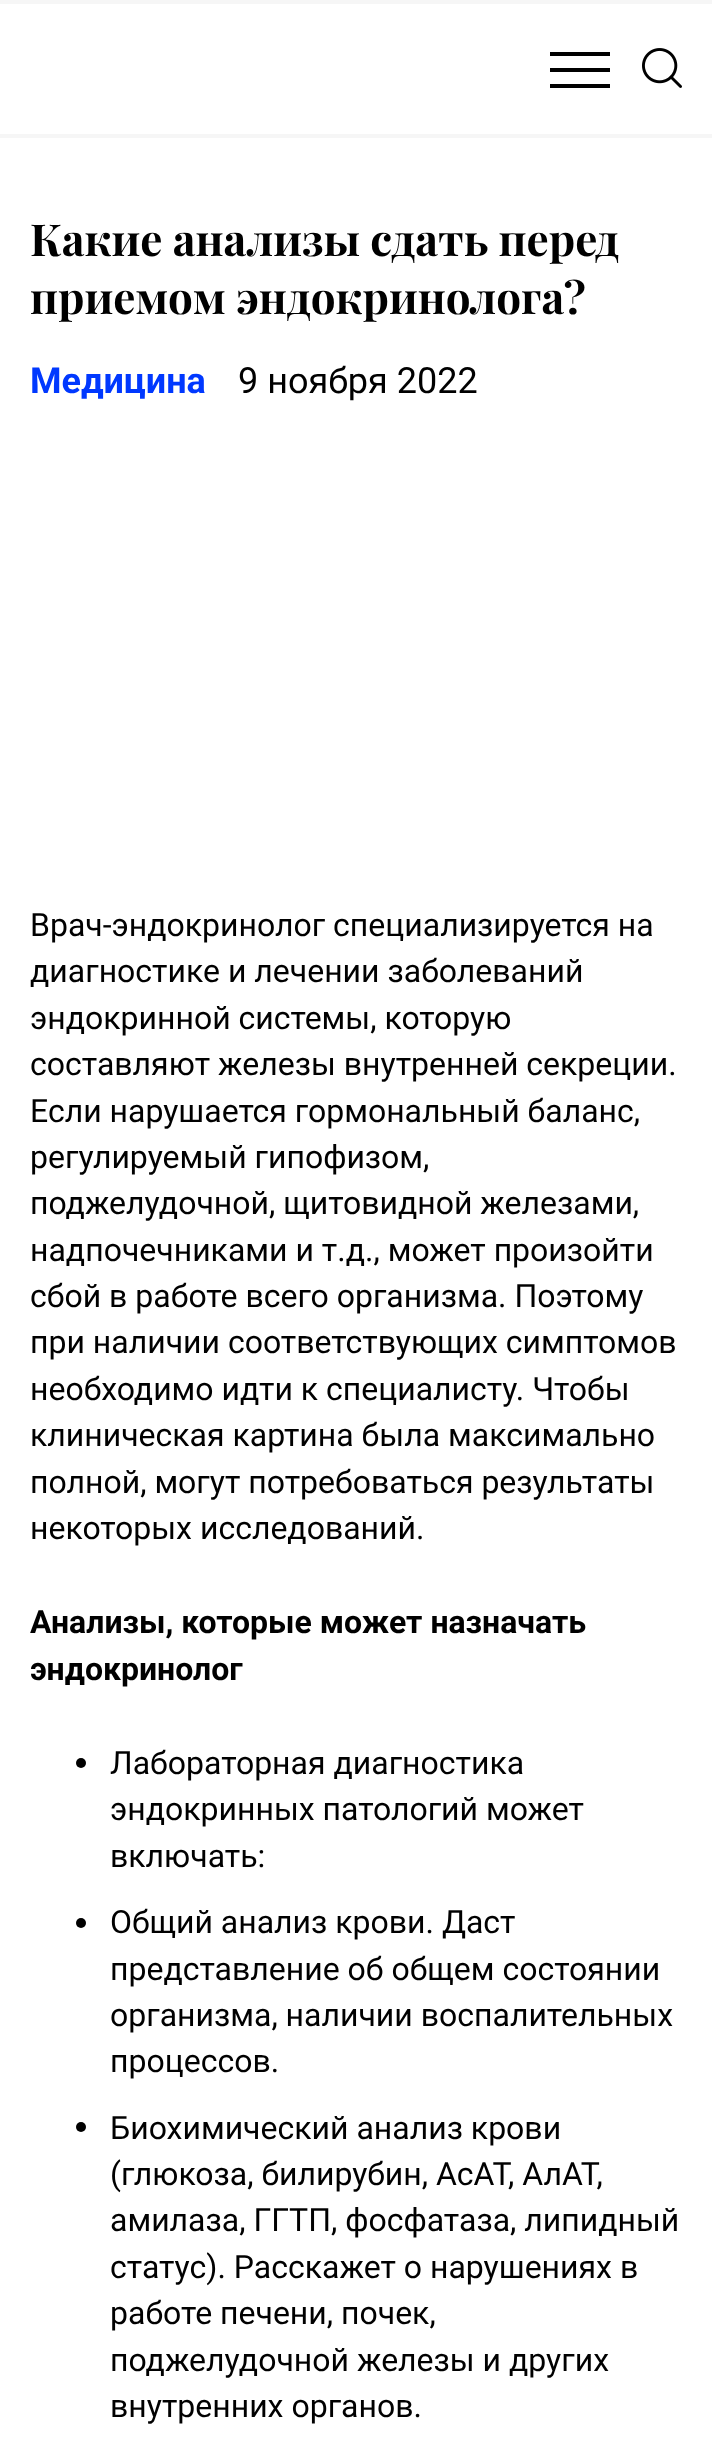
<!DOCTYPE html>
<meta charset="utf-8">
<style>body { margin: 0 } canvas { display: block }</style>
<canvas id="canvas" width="712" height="2449"></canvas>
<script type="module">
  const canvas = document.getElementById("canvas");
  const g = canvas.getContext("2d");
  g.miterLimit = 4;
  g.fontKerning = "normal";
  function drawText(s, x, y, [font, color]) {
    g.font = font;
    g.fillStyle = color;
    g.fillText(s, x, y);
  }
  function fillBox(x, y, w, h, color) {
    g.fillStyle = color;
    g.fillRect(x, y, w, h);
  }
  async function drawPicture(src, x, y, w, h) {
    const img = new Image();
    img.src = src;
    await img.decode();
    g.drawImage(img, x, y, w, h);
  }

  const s1 = ["bold 44px Playfair Display", "#000000"];
  const s2 = ["bold 36px Roboto", "#0038FF"];
  const s3 = ["36px Roboto", "#000000"];
  const s4 = ["32px Roboto", "#000000"];
  const s5 = ["bold 32px Roboto", "#000000"];

  fillBox(0, 0, 712, 2449, "#FFFFFF");
  fillBox(0, 0, 712, 4, "#F6F6F6");
  fillBox(0, 134, 712, 4, "#F6F6F6");
  fillBox(550, 68, 60, 4, "#000000");
  fillBox(550, 52, 60, 4, "#000000");
  fillBox(550, 84, 60, 4, "#000000");
  await drawPicture("pic1.png", 642, 48, 40, 40);
  drawText("Какие анализы сдать перед", 30, 256, s1);
  drawText("приемом эндокринолога?", 30, 314, s1);
  drawText("Медицина", 30, 393, s2);
  drawText("9 ноября 2022", 238, 393, s3);
  drawText("Врач-эндокринолог специализируется на", 30, 936, s4);
  drawText("диагностике и лечении заболеваний", 30, 982, s4);
  drawText("эндокринной системы, которую", 30, 1029, s4);
  drawText("составляют железы внутренней секреции.", 30, 1075, s4);
  drawText("Если нарушается гормональный баланс,", 30, 1122, s4);
  drawText("регулируемый гипофизом,", 30, 1168, s4);
  drawText("поджелудочной, щитовидной железами,", 30, 1214, s4);
  drawText("надпочечниками и т.д., может произойти", 30, 1261, s4);
  drawText("сбой в работе всего организма. Поэтому", 30, 1307, s4);
  drawText("при наличии соответствующих симптомов", 30, 1353, s4);
  drawText("необходимо идти к специалисту. Чтобы", 30, 1400, s4);
  drawText("клиническая картина была максимально", 30, 1446, s4);
  drawText("полной, могут потребоваться результаты", 30, 1493, s4);
  drawText("некоторых исследований.", 30, 1539, s4);
  drawText("Анализы, которые может назначать", 30, 1633, s5);
  drawText("эндокринолог", 30, 1680, s5);
  g.beginPath();
  g.arc(81, 1763, 5, 0, Math.PI * 2);
  g.fill();
  drawText("Лабораторная диагностика", 110, 1774, s4);
  drawText("эндокринных патологий может", 110, 1820, s4);
  drawText("включать:", 110, 1867, s4);
  g.beginPath();
  g.arc(81, 1923, 5, 0, Math.PI * 2);
  g.fill();
  drawText("Общий анализ крови. Даст", 110, 1933, s4);
  drawText("представление об общем состоянии", 110, 1980, s4);
  drawText("организма, наличии воспалительных", 110, 2026, s4);
  drawText("процессов.", 110, 2072, s4);
  g.beginPath();
  g.arc(81, 2127, 5, 0, Math.PI * 2);
  g.fill();
  drawText("Биохимический анализ крови", 110, 2139, s4);
  drawText("(глюкоза, билирубин, АсАТ, АлАТ,", 110, 2185, s4);
  drawText("амилаза, ГГТП, фосфатаза, липидный", 110, 2231, s4);
  drawText("статус). Расскажет о нарушениях в", 110, 2278, s4);
  drawText("работе печени, почек,", 110, 2324, s4);
  drawText("поджелудочной железы и других", 110, 2371, s4);
  drawText("внутренних органов.", 110, 2417, s4);
</script>
